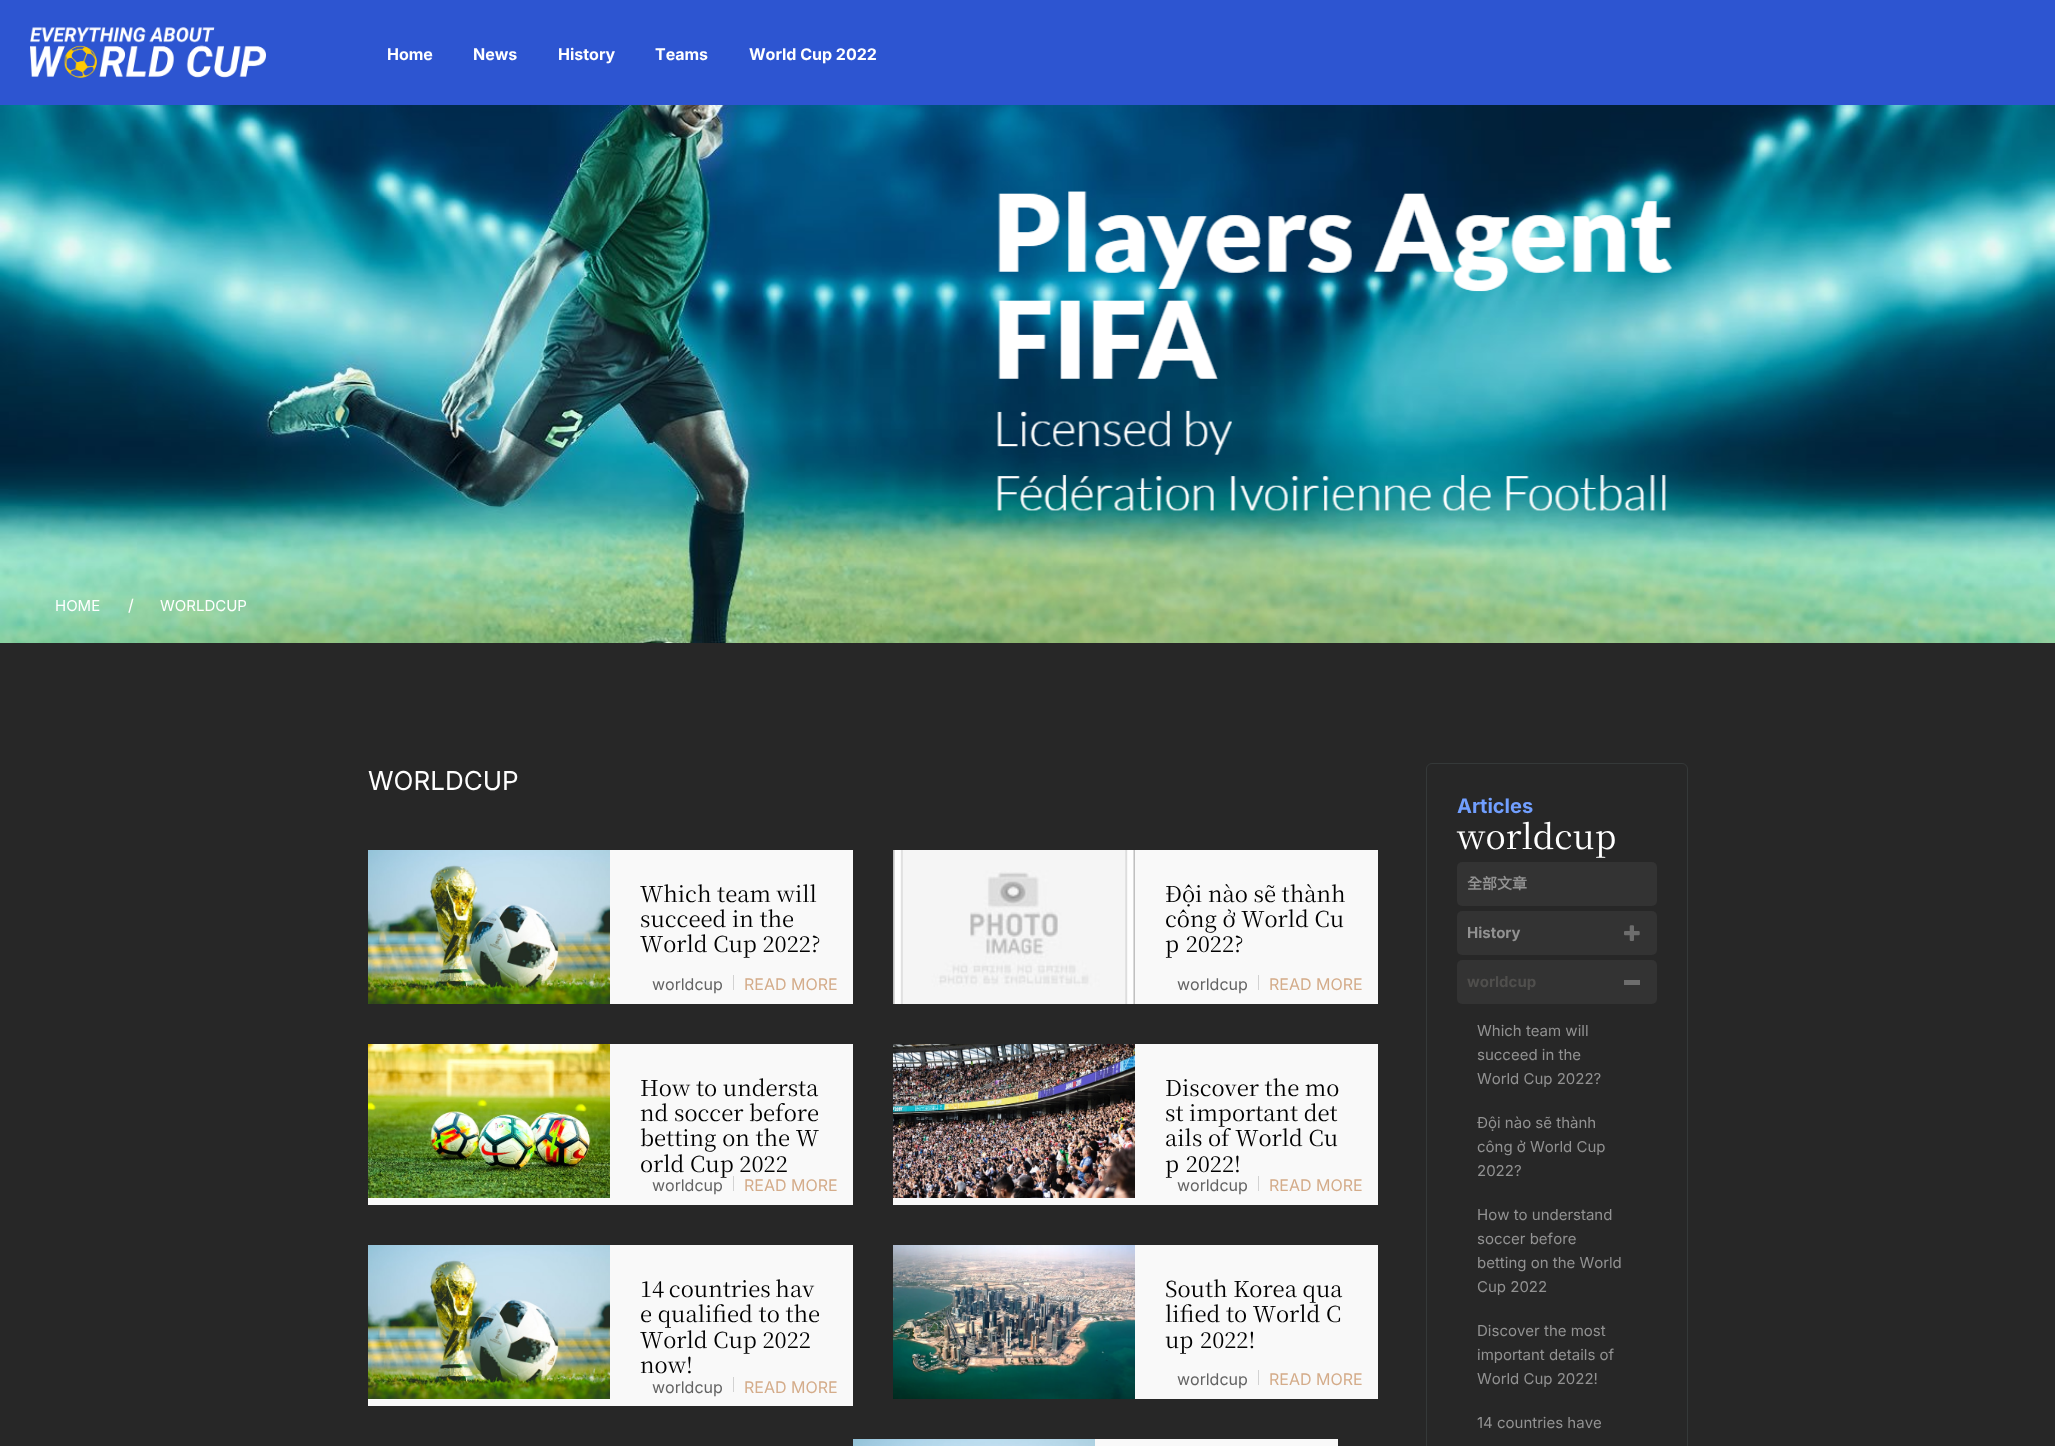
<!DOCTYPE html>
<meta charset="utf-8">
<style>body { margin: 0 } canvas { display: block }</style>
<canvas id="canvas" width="2055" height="1446"></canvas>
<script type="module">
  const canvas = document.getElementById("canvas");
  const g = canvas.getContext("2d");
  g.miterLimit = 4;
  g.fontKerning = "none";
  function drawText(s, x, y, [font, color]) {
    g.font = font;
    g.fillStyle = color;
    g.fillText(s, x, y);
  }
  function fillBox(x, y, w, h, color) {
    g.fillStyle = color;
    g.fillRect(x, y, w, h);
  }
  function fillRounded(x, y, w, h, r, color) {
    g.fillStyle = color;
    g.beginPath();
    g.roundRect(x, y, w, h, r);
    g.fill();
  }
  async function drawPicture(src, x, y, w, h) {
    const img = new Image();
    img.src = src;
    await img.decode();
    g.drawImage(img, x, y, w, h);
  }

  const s1 = ["bold 16px Inter", "#FFFFFF"];
  const s2 = ["15px Inter", "#FFFFFF"];
  const s3 = ["16px Inter", "#FFFFFF"];
  const s4 = ["26px Inter", "#FFFFFF"];
  const s5 = ["200 22px Noto Serif TC", "#000000"];
  const s6 = ["16px Inter", "#636363"];
  const s7 = ["16px Inter", "#D4AC8A"];
  const s8 = ["bold 20px Inter", "#719FFF"];
  const s9 = ["200 34px Noto Serif TC", "#FFFFFF"];
  const s10 = ["bold 15px Noto Sans CJK TC", "#929292"];
  const s11 = ["bold 15px Inter", "#929292"];
  const s12 = ["bold 15px Inter", "#504F4D"];
  const s13 = ["15px Inter", "#929292"];

  fillBox(0, 0, 2055, 1446, "#272727");
  fillBox(0, 0, 2055, 105, "#2D55D1");
  await drawPicture("pic1.png", 30, 27, 236, 51);
  drawText("Home", 387, 60, s1);
  drawText("News", 473, 60, s1);
  drawText("History", 558, 60, s1);
  drawText("Teams", 655, 60, s1);
  drawText("World Cup 2022", 749, 60, s1);
  await drawPicture("pic2.png", 0, 105, 2055, 538);
  drawText("HOME", 55, 611, s2);
  drawText("/", 128, 611, s3);
  drawText("WORLDCUP", 160, 611, s2);
  drawText("WORLDCUP", 368, 790, s4);
  fillBox(610, 850, 243, 154, "#F9F9F9");
  await drawPicture("pic3.png", 368, 850, 242, 154);
  drawText("Which team will", 640, 902, s5);
  drawText("succeed in the", 640, 927, s5);
  drawText("World Cup 2022?", 640, 952, s5);
  drawText("worldcup", 652, 990, s6);
  fillBox(733, 975, 1, 15, "#D2D2D2");
  drawText("READ MORE", 744, 990, s7);
  fillBox(1135, 850, 243, 154, "#F9F9F9");
  await drawPicture("pic4.png", 893, 850, 242, 154);
  drawText("Đội nào sẽ thành", 1165, 902, s5);
  drawText("công ở World Cu", 1165, 927, s5);
  g.wordSpacing = "1px";
  drawText("p 2022?", 1165, 952, s5);
  g.wordSpacing = "0px";
  drawText("worldcup", 1177, 990, s6);
  fillBox(1258, 975, 1, 15, "#D2D2D2");
  drawText("READ MORE", 1269, 990, s7);
  fillBox(368, 1044, 485, 161, "#F9F9F9");
  await drawPicture("pic5.png", 368, 1044, 242, 154);
  drawText("How to understa", 640, 1096, s5);
  drawText("nd soccer before", 640, 1121, s5);
  drawText("betting on the W", 640, 1146, s5);
  drawText("orld Cup 2022", 640, 1172, s5);
  drawText("worldcup", 652, 1191, s6);
  fillBox(733, 1176, 1, 15, "#D2D2D2");
  drawText("READ MORE", 744, 1191, s7);
  fillBox(893, 1044, 485, 161, "#F9F9F9");
  await drawPicture("pic6.png", 893, 1044, 242, 154);
  drawText("Discover the mo", 1165, 1096, s5);
  drawText("st important det", 1165, 1121, s5);
  drawText("ails of World Cu", 1165, 1146, s5);
  g.wordSpacing = "1px";
  drawText("p 2022!", 1165, 1172, s5);
  g.wordSpacing = "0px";
  drawText("worldcup", 1177, 1191, s6);
  fillBox(1258, 1176, 1, 15, "#D2D2D2");
  drawText("READ MORE", 1269, 1191, s7);
  fillBox(368, 1245, 485, 161, "#F9F9F9");
  await drawPicture("pic3.png", 368, 1245, 242, 154);
  g.wordSpacing = "-1px";
  drawText("14 countries hav", 640, 1297, s5);
  g.wordSpacing = "0px";
  drawText("e qualified to the", 640, 1322, s5);
  drawText("World Cup 2022", 640, 1348, s5);
  drawText("now!", 640, 1373, s5);
  drawText("worldcup", 652, 1393, s6);
  fillBox(733, 1377, 1, 15, "#D2D2D2");
  drawText("READ MORE", 744, 1393, s7);
  fillBox(1135, 1245, 243, 154, "#F9F9F9");
  await drawPicture("pic7.png", 893, 1245, 242, 154);
  drawText("South Korea qua", 1165, 1297, s5);
  drawText("lified to World C", 1165, 1322, s5);
  g.wordSpacing = "1px";
  drawText("up 2022!", 1165, 1348, s5);
  g.wordSpacing = "0px";
  drawText("worldcup", 1177, 1385, s6);
  fillBox(1258, 1370, 1, 15, "#D2D2D2");
  drawText("READ MORE", 1269, 1385, s7);
  fillBox(1095, 1439, 243, 7, "#F9F9F9");
  await drawPicture("pic8.png", 853, 1439, 242, 7);
  g.beginPath();
  g.roundRect(1426.5, 763.5, 261, 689, 5.5);
  g.strokeStyle = "#353939";
  g.stroke();
  drawText("Articles", 1457, 813, s8);
  drawText("worldcup", 1457, 849, s9);
  fillRounded(1457, 862, 200, 44, 5, "#333333");
  drawText("全部文章", 1467, 889, s10);
  fillRounded(1457, 911, 200, 44, 5, "#333333");
  drawText("History", 1467, 938, s11);
  await drawPicture("pic9.png", 1624, 925, 16, 16);
  fillRounded(1457, 960, 200, 44, 5, "#333333");
  drawText("worldcup", 1467, 987, s12);
  fillBox(1624, 980, 16, 5, "#6D6D6D");
  drawText("Which team will", 1477, 1036, s13);
  drawText("succeed in the", 1477, 1060, s13);
  drawText("World Cup 2022?", 1477, 1084, s13);
  drawText("Đội nào sẽ thành", 1477, 1128, s13);
  drawText("công ở World Cup", 1477, 1152, s13);
  drawText("2022?", 1477, 1176, s13);
  drawText("How to understand", 1477, 1220, s13);
  drawText("soccer before", 1477, 1244, s13);
  drawText("betting on the World", 1477, 1268, s13);
  drawText("Cup 2022", 1477, 1292, s13);
  drawText("Discover the most", 1477, 1336, s13);
  drawText("important details of", 1477, 1360, s13);
  drawText("World Cup 2022!", 1477, 1384, s13);
  drawText("14 countries have", 1477, 1428, s13);
</script>
